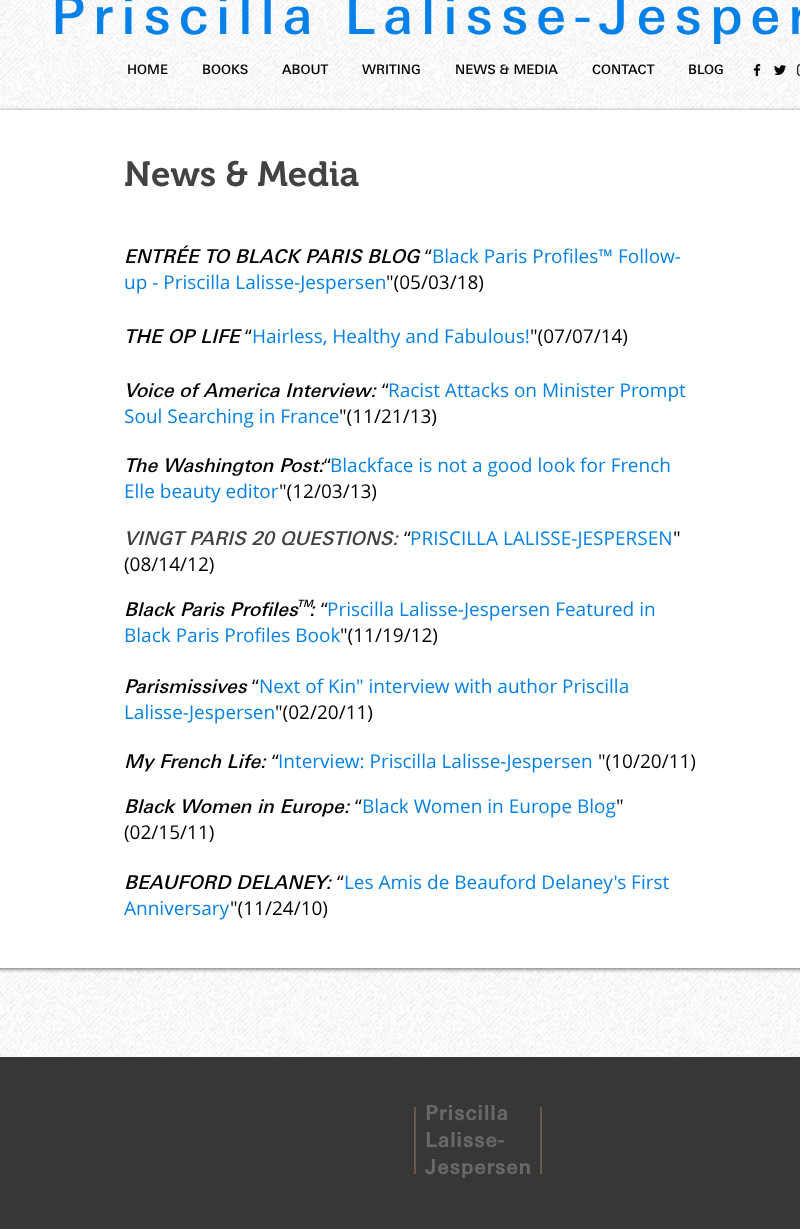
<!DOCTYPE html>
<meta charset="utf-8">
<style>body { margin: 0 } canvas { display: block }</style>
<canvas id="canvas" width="800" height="1229"></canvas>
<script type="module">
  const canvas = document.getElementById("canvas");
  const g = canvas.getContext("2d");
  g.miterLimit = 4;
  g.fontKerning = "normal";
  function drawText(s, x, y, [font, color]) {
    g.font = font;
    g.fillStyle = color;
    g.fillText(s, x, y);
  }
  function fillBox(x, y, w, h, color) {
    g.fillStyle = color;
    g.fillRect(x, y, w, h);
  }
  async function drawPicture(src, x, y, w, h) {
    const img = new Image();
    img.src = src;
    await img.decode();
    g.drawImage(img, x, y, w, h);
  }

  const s1 = ["500 53px 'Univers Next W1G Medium'", "#0581E8"];
  const s2 = ["500 13px 'Univers Next W1G Medium'", "#000000"];
  const s3 = ["600 35px 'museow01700'", "#424242"];
  const s4 = ["italic 500 19px 'Univers Next W1G Medium'", "#000000"];
  const s5 = ["19px Open Sans", "#000000"];
  const s6 = ["19px Open Sans", "#0581E8"];
  const s7 = ["italic 500 19px 'Univers Next W1G Medium'", "#424242"];
  const s8 = ["italic 500 10px 'Univers Next W1G Medium'", "#000000"];
  const s9 = ["bold 20px 'Univers Next W1G Medium'", "#696868"];

  fillBox(0, 0, 800, 1229, "#FFFFFF");
  await drawPicture("pic1.png", 0, 0, 800, 1057);
  g.letterSpacing = "7.95px";
  drawText("Priscilla Lalisse-Jesper", 51, 34, s1);
  g.letterSpacing = "0px";
  drawText("HOME", 127, 74, s2);
  drawText("BOOKS", 202, 74, s2);
  drawText("ABOUT", 282, 74, s2);
  drawText("WRITING", 362, 74, s2);
  drawText("NEWS & MEDIA", 455, 74, s2);
  drawText("CONTACT", 592, 74, s2);
  drawText("BLOG", 688, 74, s2);
  await drawPicture("pic2.png", 753, 63, 8, 14);
  await drawPicture("pic3.png", 774, 65, 12, 10);
  await drawPicture("pic4.png", 796, 64, 4, 12);
  g.fillStyle = "rgba(0, 0, 0, 0.6)";
  g.filter = "blur(2px)";
  g.beginPath();
  g.rect(-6, 111, 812, 858);
  g.fill();
  g.filter = "none";
  fillBox(0, 110, 800, 858, "#FFFFFF");
  drawText("News & Media", 124, 186, s3);
  drawText("ENTRÉE TO BLACK PARIS BLOG", 124, 263, s4);
  drawText("“", 425, 263, s5);
  drawText("Black Paris Profiles™ Follow-", 432, 263, s6);
  drawText("up - Priscilla Lalisse-Jespersen", 124, 289, s6);
  drawText("\"(05/03/18)", 386, 289, s5);
  drawText("THE OP LIFE", 124, 343, s4);
  drawText("“", 245, 343, s5);
  drawText("Hairless, Healthy and Fabulous!", 252, 343, s6);
  drawText("\"(07/07/14)", 530, 343, s5);
  drawText("Voice of America Interview:", 124, 397, s4);
  drawText("“", 382, 397, s5);
  drawText("Racist Attacks on Minister Prompt", 388, 397, s6);
  drawText("Soul Searching in France", 124, 423, s6);
  drawText("\"(11/21/13)", 339, 423, s5);
  drawText("The Washington Post:", 124, 472, s4);
  drawText("“", 324, 472, s5);
  drawText("Blackface is not a good look for French", 330, 472, s6);
  drawText("Elle beauty editor", 124, 498, s6);
  drawText("\"(12/03/13)", 279, 498, s5);
  drawText("VINGT PARIS 20 QUESTIONS:", 124, 545, s7);
  drawText("“", 404, 545, s5);
  drawText("PRISCILLA LALISSE-JESPERSEN", 410, 545, s6);
  drawText("\"", 673, 545, s5);
  drawText("(08/14/12)", 124, 571, s5);
  drawText("Black Paris Profiles", 124, 616, s4);
  drawText("TM", 297, 607, s8);
  drawText("“", 321, 616, s5);
  drawText("Priscilla Lalisse-Jespersen Featured in", 327, 616, s6);
  drawText(":", 309, 616, s4);
  drawText("Black Paris Profiles Book", 124, 642, s6);
  drawText("\"(11/19/12)", 340, 642, s5);
  drawText("Parismissives", 124, 693, s4);
  drawText("“", 252, 693, s5);
  drawText("Next of Kin\" interview with author Priscilla", 259, 693, s6);
  drawText("Lalisse-Jespersen", 124, 719, s6);
  drawText("\"(02/20/11)", 275, 719, s5);
  drawText("My French Life:", 124, 768, s4);
  drawText("“", 272, 768, s5);
  drawText("Interview: Priscilla Lalisse-Jespersen", 278, 768, s6);
  drawText("\"(10/20/11)", 598, 768, s5);
  drawText("Black Women in Europe:", 124, 813, s4);
  drawText("“", 355, 813, s5);
  drawText("Black Women in Europe Blog", 362, 813, s6);
  drawText("\"", 616, 813, s5);
  drawText("(02/15/11)", 124, 839, s5);
  drawText("BEAUFORD DELANEY:", 124, 889, s4);
  drawText("“", 337, 889, s5);
  drawText("Les Amis de Beauford Delaney's First", 344, 889, s6);
  drawText("Anniversary", 124, 915, s6);
  drawText("\"(11/24/10)", 230, 915, s5);
  fillBox(0, 1057, 800, 172, "#383737");
  fillBox(414, 1107, 2, 67, "#665A49");
  g.letterSpacing = "1px";
  drawText("Priscilla", 425, 1120, s9);
  drawText("Lalisse-", 425, 1147, s9);
  drawText("Jespersen", 425, 1174, s9);
  fillBox(540, 1107, 2, 67, "#665A49");
</script>
